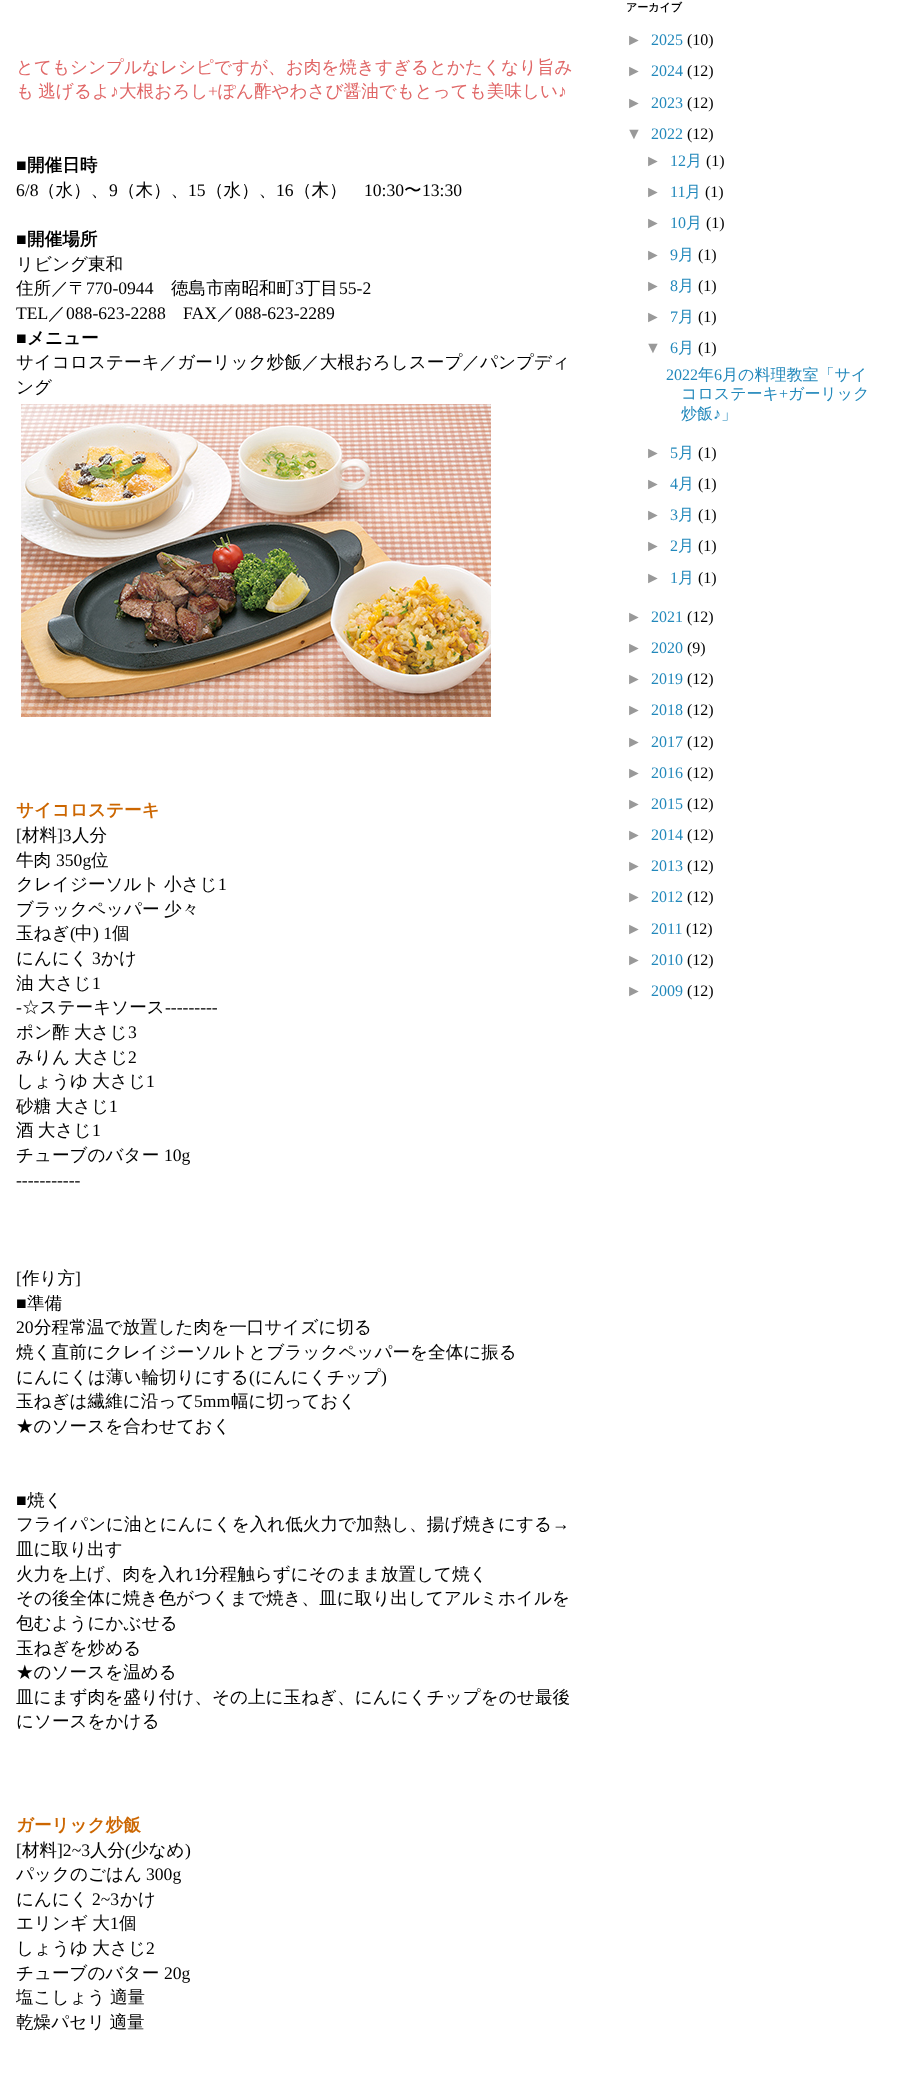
<!DOCTYPE html>
<meta charset="utf-8">
<style>body { margin: 0 } canvas { display: block }</style>
<canvas id="canvas" width="906" height="2089"></canvas>
<script type="module">
  const canvas = document.getElementById("canvas");
  const g = canvas.getContext("2d");
  g.miterLimit = 4;
  g.fontKerning = "normal";
  function drawText(s, x, y, [font, color]) {
    g.font = font;
    g.fillStyle = color;
    g.fillText(s, x, y);
  }
  function fillBox(x, y, w, h, color) {
    g.fillStyle = color;
    g.fillRect(x, y, w, h);
  }
  async function drawPicture(src, x, y, w, h) {
    const img = new Image();
    img.src = src;
    await img.decode();
    g.drawImage(img, x, y, w, h);
  }

  const s1 = ["500 17.6px WenQuanYi Zen Hei", "#E06666"];
  const s2 = ["17.6px Liberation Serif", "#E06666"];
  const s3 = ["bold 17.6px Liberation Serif", "#000000"];
  const s4 = ["bold 17.6px WenQuanYi Zen Hei", "#000000"];
  const s5 = ["17.6px Liberation Serif", "#000000"];
  const s6 = ["500 17.6px WenQuanYi Zen Hei", "#000000"];
  const s7 = ["bold 17.6px WenQuanYi Zen Hei", "#CC6600"];
  const s8 = ["bold 11px WenQuanYi Zen Hei", "#000000"];
  const s9 = ["16px Liberation Sans", "#999999"];
  const s10 = ["16px Liberation Serif", "#2288BB"];
  const s11 = ["16px Liberation Serif", "#000000"];
  const s12 = ["500 16px WenQuanYi Zen Hei", "#2288BB"];

  fillBox(0, 0, 906, 2089, "#FFFFFF");
  drawText("とてもシンプルなレシピですが、お肉を焼きすぎるとかたくなり旨み", 16, 73, s1);
  g.wordSpacing = "-1px";
  drawText("も 逃げるよ", 16, 97, s1);
  g.wordSpacing = "0px";
  drawText("♪", 110, 97, s2);
  drawText("大根おろし", 119, 97, s1);
  drawText("+", 208, 97, s2);
  drawText("ぽん酢やわさび醤油でもとっても美味しい", 218, 97, s1);
  drawText("♪", 558, 97, s2);
  drawText("■", 16, 171, s3);
  drawText("開催日時", 27, 171, s4);
  drawText("6/8", 16, 196, s5);
  drawText("（水）、", 38, 196, s6);
  drawText("9", 109, 196, s5);
  drawText("（木）、", 118, 196, s6);
  drawText("15", 188, 196, s5);
  drawText("（水）、", 206, 196, s6);
  drawText("16", 276, 196, s5);
  drawText("（木）", 294, 196, s6);
  drawText("10:30", 364, 196, s5);
  drawText("〜", 404, 196, s6);
  drawText("13:30", 422, 196, s5);
  drawText("■", 16, 245, s3);
  drawText("開催場所", 27, 245, s4);
  drawText("リビング東和", 16, 270, s6);
  drawText("住所／〒", 16, 294, s6);
  drawText("770-0944", 86, 294, s5);
  drawText("徳島市南昭和町", 171, 294, s6);
  drawText("3", 295, 294, s5);
  drawText("丁目", 303, 294, s6);
  drawText("55-2", 339, 294, s5);
  drawText("TEL", 16, 319, s5);
  drawText("／", 48, 319, s6);
  drawText("088-623-2288", 66, 319, s5);
  drawText("FAX", 183, 319, s5);
  drawText("／", 217, 319, s6);
  drawText("088-623-2289", 235, 319, s5);
  drawText("■", 16, 344, s3);
  drawText("メニュー", 27, 344, s4);
  drawText("サイコロステーキ／ガーリック炒飯／大根おろしスープ／パンプディ", 16, 368, s6);
  drawText("ング", 16, 393, s6);
  await drawPicture("pic1.png", 21, 404, 470, 313);
  drawText("サイコロステーキ", 16, 816, s7);
  drawText("[", 16, 841, s5);
  drawText("材料", 22, 841, s6);
  drawText("]3", 57, 841, s5);
  drawText("人分", 72, 841, s6);
  drawText("牛肉", 16, 866, s6);
  drawText("350g", 56, 866, s5);
  drawText("位", 91, 866, s6);
  g.wordSpacing = "-1px";
  drawText("クレイジーソルト 小さじ", 16, 890, s6);
  g.wordSpacing = "0px";
  drawText("1", 218, 890, s5);
  g.wordSpacing = "-1px";
  drawText("ブラックペッパー 少々", 16, 915, s6);
  g.wordSpacing = "0px";
  drawText("玉ねぎ", 16, 939, s6);
  drawText("(", 70, 939, s5);
  drawText("中", 75, 939, s6);
  drawText(") 1", 93, 939, s5);
  drawText("個", 112, 939, s6);
  drawText("にんにく", 16, 964, s6);
  drawText("3", 92, 964, s5);
  drawText("かけ", 101, 964, s6);
  g.wordSpacing = "-1px";
  drawText("油 大さじ", 16, 989, s6);
  g.wordSpacing = "0px";
  drawText("1", 92, 989, s5);
  drawText("-", 16, 1013, s5);
  drawText("☆ステーキソース", 22, 1013, s6);
  drawText("---------", 165, 1013, s5);
  g.wordSpacing = "-1px";
  drawText("ポン酢 大さじ", 16, 1038, s6);
  g.wordSpacing = "0px";
  drawText("3", 128, 1038, s5);
  g.wordSpacing = "-1px";
  drawText("みりん 大さじ", 16, 1063, s6);
  g.wordSpacing = "0px";
  drawText("2", 128, 1063, s5);
  g.wordSpacing = "-1px";
  drawText("しょうゆ 大さじ", 16, 1087, s6);
  g.wordSpacing = "0px";
  drawText("1", 146, 1087, s5);
  g.wordSpacing = "-1px";
  drawText("砂糖 大さじ", 16, 1112, s6);
  g.wordSpacing = "0px";
  drawText("1", 109, 1112, s5);
  g.wordSpacing = "-1px";
  drawText("酒 大さじ", 16, 1136, s6);
  g.wordSpacing = "0px";
  drawText("1", 92, 1136, s5);
  drawText("チューブのバター", 16, 1161, s6);
  drawText("10g", 164, 1161, s5);
  drawText("-----------", 16, 1186, s5);
  drawText("[", 16, 1284, s5);
  drawText("作り方", 22, 1284, s6);
  drawText("]", 75, 1284, s5);
  drawText("■", 16, 1309, s5);
  drawText("準備", 27, 1309, s6);
  drawText("20", 16, 1333, s5);
  drawText("分程常温で放置した肉を一口サイズに切る", 34, 1333, s6);
  drawText("焼く直前にクレイジーソルトとブラックペッパーを全体に振る", 16, 1358, s6);
  drawText("にんにくは薄い輪切りにする", 16, 1383, s6);
  drawText("(", 249, 1383, s5);
  drawText("にんにくチップ", 255, 1383, s6);
  drawText(")", 381, 1383, s5);
  drawText("玉ねぎは繊維に沿って", 16, 1407, s6);
  drawText("5mm", 194, 1407, s5);
  drawText("幅に切っておく", 231, 1407, s6);
  drawText("★のソースを合わせておく", 16, 1432, s6);
  drawText("■", 16, 1506, s5);
  drawText("焼く", 27, 1506, s6);
  drawText("フライパンに油とにんにくを入れ低火力で加熱し、揚げ焼きにする", 16, 1530, s6);
  drawText("→", 552, 1530, s5);
  drawText("皿に取り出す", 16, 1555, s6);
  drawText("火力を上げ、肉を入れ", 16, 1580, s6);
  drawText("1", 194, 1580, s5);
  drawText("分程触らずにそのまま放置して焼く", 202, 1580, s6);
  drawText("その後全体に焼き色がつくまで焼き、皿に取り出してアルミホイルを", 16, 1604, s6);
  drawText("包むようにかぶせる", 16, 1629, s6);
  drawText("玉ねぎを炒める", 16, 1654, s6);
  drawText("★のソースを温める", 16, 1678, s6);
  drawText("皿にまず肉を盛り付け、その上に玉ねぎ、にんにくチップをのせ最後", 16, 1703, s6);
  drawText("にソースをかける", 16, 1727, s6);
  drawText("ガーリック炒飯", 16, 1831, s7);
  drawText("[", 16, 1856, s5);
  drawText("材料", 22, 1856, s6);
  drawText("]2~3", 57, 1856, s5);
  drawText("人分", 90, 1856, s6);
  drawText("(", 125, 1856, s5);
  drawText("少なめ", 131, 1856, s6);
  drawText(")", 185, 1856, s5);
  drawText("パックのごはん", 16, 1880, s6);
  drawText("300g", 146, 1880, s5);
  drawText("にんにく", 16, 1905, s6);
  drawText("2~3", 92, 1905, s5);
  drawText("かけ", 120, 1905, s6);
  g.wordSpacing = "-1px";
  drawText("エリンギ 大", 16, 1929, s6);
  g.wordSpacing = "0px";
  drawText("1", 110, 1929, s5);
  drawText("個", 119, 1929, s6);
  g.wordSpacing = "-1px";
  drawText("しょうゆ 大さじ", 16, 1954, s6);
  g.wordSpacing = "0px";
  drawText("2", 146, 1954, s5);
  drawText("チューブのバター", 16, 1979, s6);
  drawText("20g", 164, 1979, s5);
  g.wordSpacing = "-1px";
  drawText("塩こしょう 適量", 16, 2003, s6);
  drawText("乾燥パセリ 適量", 16, 2028, s6);
  g.wordSpacing = "0px";
  drawText("アーカイブ", 626, 11, s8);
  drawText("►", 626, 45, s9);
  drawText("2025", 651, 45, s10);
  drawText("(10)", 687, 45, s11);
  drawText("►", 626, 76, s9);
  drawText("2024", 651, 76, s10);
  drawText("(12)", 687, 76, s11);
  drawText("►", 626, 108, s9);
  drawText("2023", 651, 108, s10);
  drawText("(12)", 687, 108, s11);
  drawText("▼", 626, 139, s9);
  drawText("2022", 651, 139, s10);
  drawText("(12)", 687, 139, s11);
  drawText("►", 645, 166, s9);
  drawText("12", 670, 166, s10);
  drawText("月", 686, 166, s12);
  drawText("(1)", 706, 166, s11);
  drawText("►", 645, 197, s9);
  drawText("11", 670, 197, s10);
  drawText("月", 685, 197, s12);
  drawText("(1)", 705, 197, s11);
  drawText("►", 645, 228, s9);
  drawText("10", 670, 228, s10);
  drawText("月", 686, 228, s12);
  drawText("(1)", 706, 228, s11);
  drawText("►", 645, 260, s9);
  drawText("9", 670, 260, s10);
  drawText("月", 678, 260, s12);
  drawText("(1)", 698, 260, s11);
  drawText("►", 645, 291, s9);
  drawText("8", 670, 291, s10);
  drawText("月", 678, 291, s12);
  drawText("(1)", 698, 291, s11);
  drawText("►", 645, 322, s9);
  drawText("7", 670, 322, s10);
  drawText("月", 678, 322, s12);
  drawText("(1)", 698, 322, s11);
  drawText("▼", 645, 353, s9);
  drawText("6", 670, 353, s10);
  drawText("月", 678, 353, s12);
  drawText("(1)", 698, 353, s11);
  drawText("2022", 666, 380, s10);
  drawText("年", 698, 380, s12);
  drawText("6", 714, 380, s10);
  drawText("月の料理教室「サイ", 722, 380, s12);
  drawText("コロステーキ", 681, 399, s12);
  drawText("+", 779, 399, s10);
  drawText("ガーリック", 788, 399, s12);
  drawText("炒飯", 681, 419, s12);
  drawText("♪", 713, 419, s10);
  drawText("」", 721, 419, s12);
  drawText("►", 645, 458, s9);
  drawText("5", 670, 458, s10);
  drawText("月", 678, 458, s12);
  drawText("(1)", 698, 458, s11);
  drawText("►", 645, 489, s9);
  drawText("4", 670, 489, s10);
  drawText("月", 678, 489, s12);
  drawText("(1)", 698, 489, s11);
  drawText("►", 645, 520, s9);
  drawText("3", 670, 520, s10);
  drawText("月", 678, 520, s12);
  drawText("(1)", 698, 520, s11);
  drawText("►", 645, 551, s9);
  drawText("2", 670, 551, s10);
  drawText("月", 678, 551, s12);
  drawText("(1)", 698, 551, s11);
  drawText("►", 645, 583, s9);
  drawText("1", 670, 583, s10);
  drawText("月", 678, 583, s12);
  drawText("(1)", 698, 583, s11);
  drawText("►", 626, 622, s9);
  drawText("2021", 651, 622, s10);
  drawText("(12)", 687, 622, s11);
  drawText("►", 626, 653, s9);
  drawText("2020", 651, 653, s10);
  drawText("(9)", 687, 653, s11);
  drawText("►", 626, 684, s9);
  drawText("2019", 651, 684, s10);
  drawText("(12)", 687, 684, s11);
  drawText("►", 626, 715, s9);
  drawText("2018", 651, 715, s10);
  drawText("(12)", 687, 715, s11);
  drawText("►", 626, 747, s9);
  drawText("2017", 651, 747, s10);
  drawText("(12)", 687, 747, s11);
  drawText("►", 626, 778, s9);
  drawText("2016", 651, 778, s10);
  drawText("(12)", 687, 778, s11);
  drawText("►", 626, 809, s9);
  drawText("2015", 651, 809, s10);
  drawText("(12)", 687, 809, s11);
  drawText("►", 626, 840, s9);
  drawText("2014", 651, 840, s10);
  drawText("(12)", 687, 840, s11);
  drawText("►", 626, 871, s9);
  drawText("2013", 651, 871, s10);
  drawText("(12)", 687, 871, s11);
  drawText("►", 626, 902, s9);
  drawText("2012", 651, 902, s10);
  drawText("(12)", 687, 902, s11);
  drawText("►", 626, 934, s9);
  drawText("2011", 651, 934, s10);
  drawText("(12)", 686, 934, s11);
  drawText("►", 626, 965, s9);
  drawText("2010", 651, 965, s10);
  drawText("(12)", 687, 965, s11);
  drawText("►", 626, 996, s9);
  drawText("2009", 651, 996, s10);
  drawText("(12)", 687, 996, s11);
</script>
